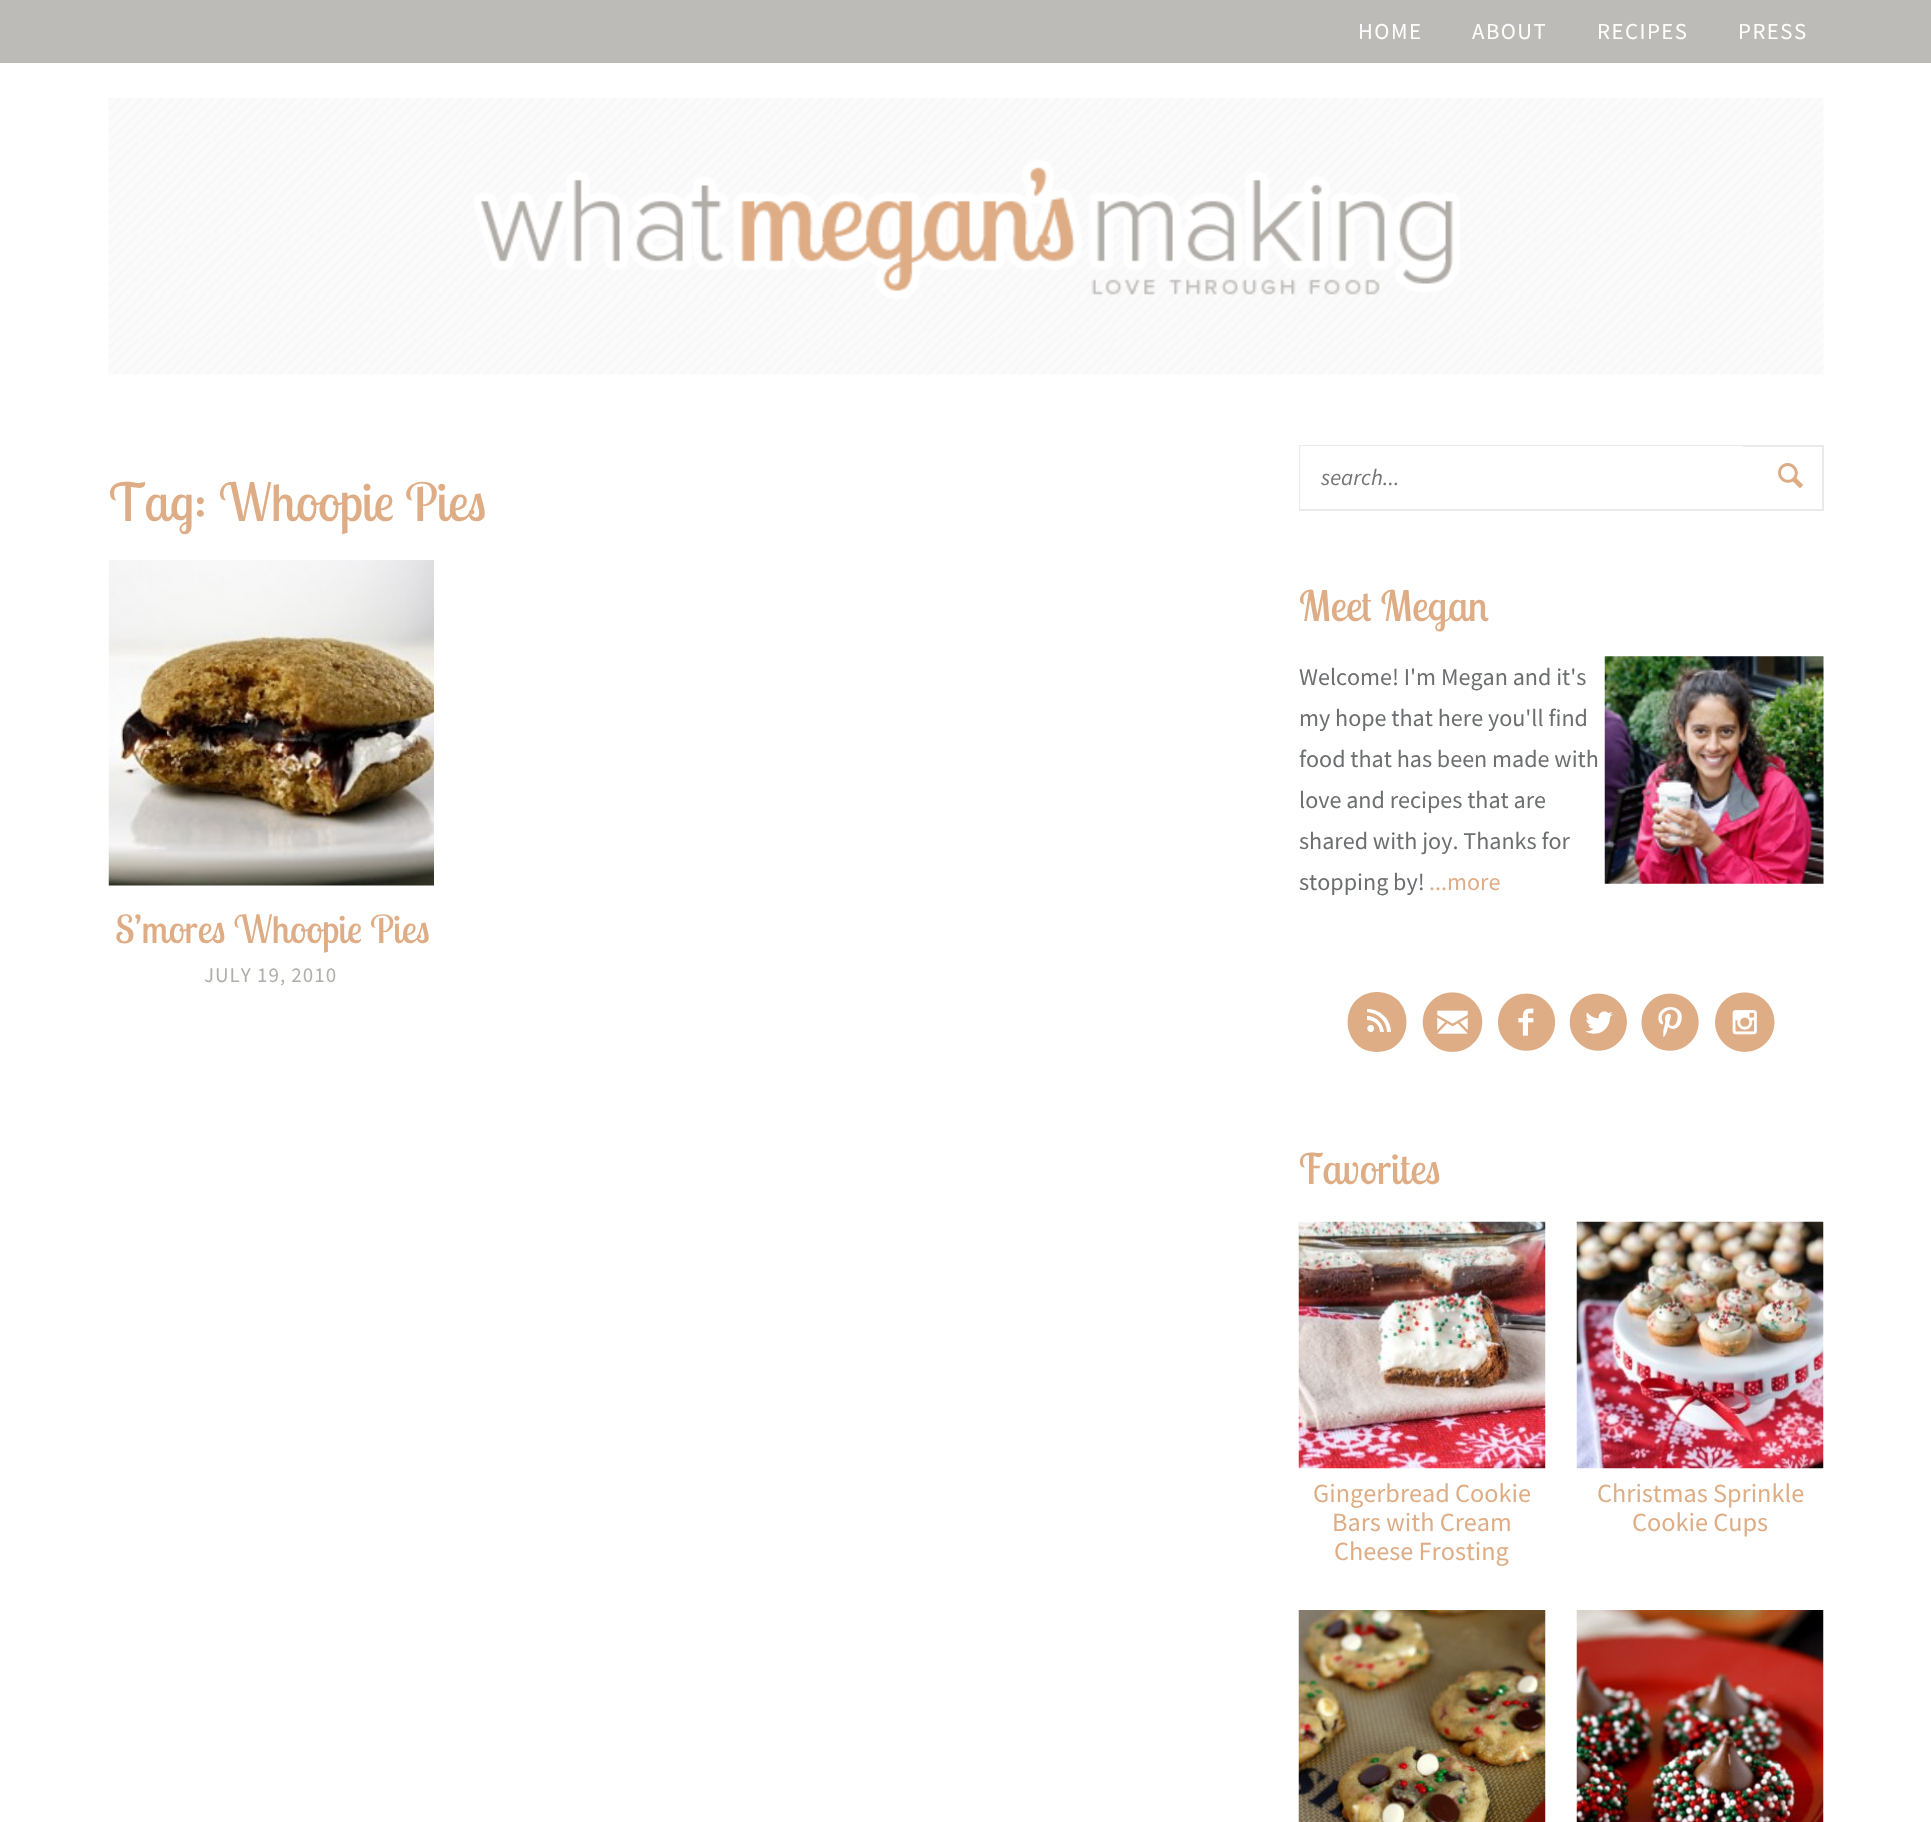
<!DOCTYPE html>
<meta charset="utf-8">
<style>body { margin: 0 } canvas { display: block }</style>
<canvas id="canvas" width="1931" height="1822"></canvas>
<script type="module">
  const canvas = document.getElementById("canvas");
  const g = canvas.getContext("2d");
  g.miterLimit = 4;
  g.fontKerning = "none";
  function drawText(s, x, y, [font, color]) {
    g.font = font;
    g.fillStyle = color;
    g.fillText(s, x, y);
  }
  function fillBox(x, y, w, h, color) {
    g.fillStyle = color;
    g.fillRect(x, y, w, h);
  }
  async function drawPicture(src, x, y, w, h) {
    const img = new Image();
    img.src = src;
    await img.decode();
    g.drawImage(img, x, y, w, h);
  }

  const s1 = ["22.75px Source Sans Pro", "#FFFFFF"];
  const s2 = ["52.5px Lobster Two", "#DEAD85"];
  const s3 = ["38.5px Lobster Two", "#DEAD85"];
  const s4 = ["21px Source Sans Pro", "#B1AEA9"];
  const s5 = ["italic 22.75px Source Sans Pro", "#757575"];
  const s6 = ["42px Lobster Two", "#DEAD85"];
  const s7 = ["24.1px Source Sans Pro", "#6C6E70"];
  const s8 = ["24.1px Source Sans Pro", "#DEAD85"];
  const s9 = ["26.25px Source Sans Pro", "#DEAD85"];

  fillBox(0, 0, 1931, 1822, "#FFFFFF");
  fillBox(0, 0, 1931, 63, "#BDBBB7");
  g.letterSpacing = "1.5px";
  drawText("HOME", 1358, 39, s1);
  drawText("ABOUT", 1472, 39, s1);
  drawText("RECIPES", 1597, 39, s1);
  drawText("PRESS", 1738, 39, s1);
  await drawPicture("pic1.png", 108, 98, 1716, 277);
  await drawPicture("pic2.png", 474, 159, 986, 140);
  g.letterSpacing = "0px";
  drawText("Tag:", 109, 521, s2);
  drawText("Whoopie Pies", 219, 521, s2);
  await drawPicture("pic3.png", 108, 560, 326, 326);
  drawText("S’mores Whoopie Pies", 115, 943, s3);
  g.letterSpacing = "1px";
  drawText("JULY 19, 2010", 204, 982, s4);
  g.strokeStyle = "#EBEAE9";
  g.lineWidth = 2;
  g.strokeRect(1300, 446, 523, 64);
  fillBox(1300, 446, 443, 63, "#FFFFFF");
  g.letterSpacing = "0px";
  drawText("search...", 1321, 485, s5);
  await drawPicture("pic4.png", 1778, 463, 25, 25);
  drawText("Meet Megan", 1299, 621, s6);
  drawText("Welcome! I'm Megan and it's", 1299, 685, s7);
  await drawPicture("pic5.png", 1604, 656, 220, 228);
  drawText("my hope that here you'll find", 1299, 726, s7);
  drawText("food that has been made with", 1299, 767, s7);
  drawText("love and recipes that are", 1299, 808, s7);
  drawText("shared with joy. Thanks for", 1299, 849, s7);
  drawText("stopping by!", 1299, 890, s7);
  drawText("...more", 1429, 890, s8);
  g.beginPath();
  g.moveTo(1377, 992);
  g.bezierCurveTo(1337, 993, 1339, 1052, 1377, 1052);
  g.bezierCurveTo(1416, 1052, 1417, 993, 1377, 992);
  g.closePath();
  g.moveTo(1371, 1032);
  g.bezierCurveTo(1366, 1032, 1366, 1025, 1371, 1025);
  g.bezierCurveTo(1375, 1025, 1375, 1032, 1371, 1032);
  g.closePath();
  g.moveTo(1380, 1032);
  g.bezierCurveTo(1380, 1025, 1374, 1020, 1367, 1020);
  g.lineTo(1367, 1016);
  g.bezierCurveTo(1376, 1016, 1383, 1023, 1384, 1032);
  g.closePath();
  g.moveTo(1387, 1032);
  g.bezierCurveTo(1387, 1021, 1378, 1013, 1367, 1012);
  g.lineTo(1367, 1009);
  g.bezierCurveTo(1380, 1009, 1391, 1019, 1391, 1032);
  g.closePath();
  g.fill();
  await drawPicture("pic6.png", 1422, 992, 61, 60);
  await drawPicture("pic7.png", 1498, 993, 58, 58);
  await drawPicture("pic8.png", 1569, 993, 58, 58);
  await drawPicture("pic9.png", 1641, 993, 58, 58);
  await drawPicture("pic10.png", 1715, 992, 60, 60);
  drawText("Favorites", 1299, 1184, s6);
  await drawPicture("pic11.png", 1298, 1221, 248, 248);
  drawText("Gingerbread Cookie", 1313, 1502, s9);
  drawText("Bars with Cream", 1332, 1531, s9);
  drawText("Cheese Frosting", 1334, 1560, s9);
  await drawPicture("pic12.png", 1576, 1221, 248, 248);
  drawText("Christmas Sprinkle", 1597, 1502, s9);
  drawText("Cookie Cups", 1632, 1531, s9);
  await drawPicture("pic13.png", 1298, 1610, 248, 212);
  await drawPicture("pic14.png", 1576, 1610, 248, 212);
</script>
